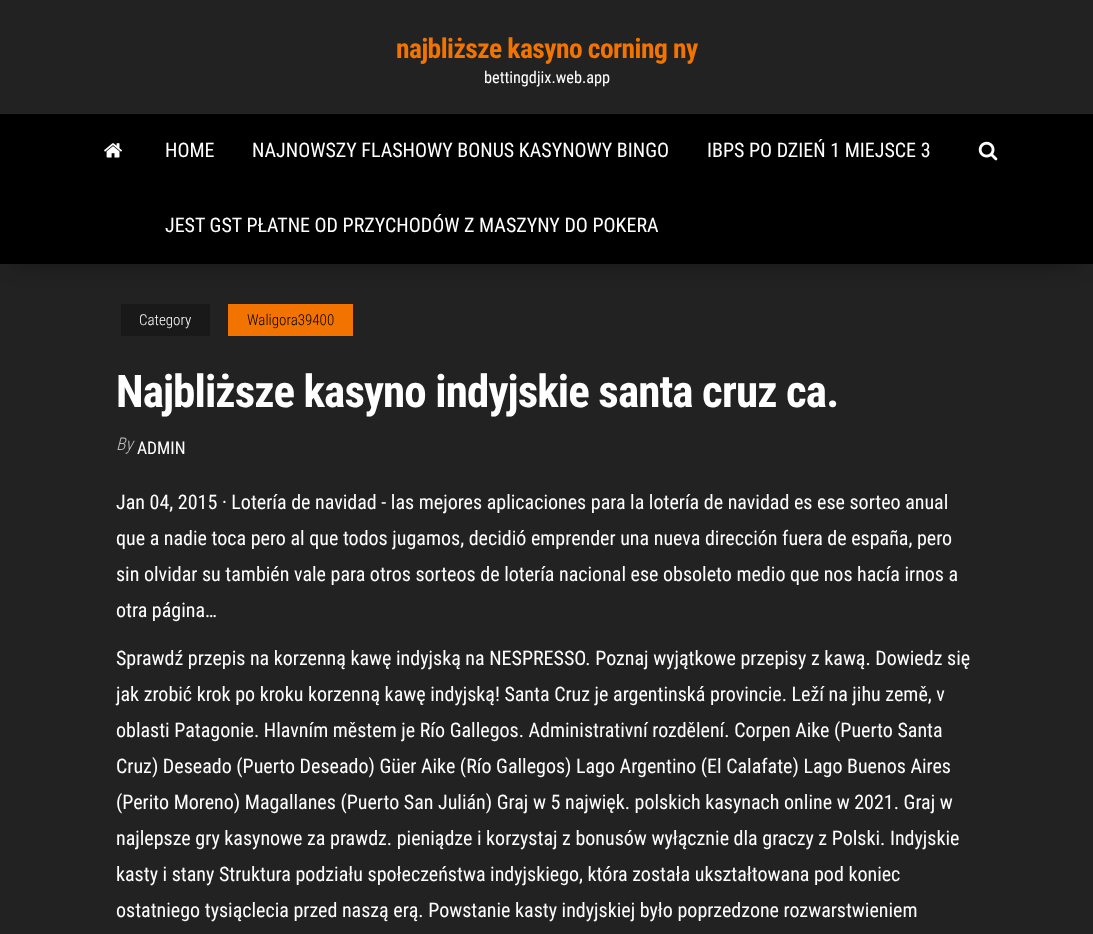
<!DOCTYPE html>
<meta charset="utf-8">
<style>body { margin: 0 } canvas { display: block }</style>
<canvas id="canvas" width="1093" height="934"></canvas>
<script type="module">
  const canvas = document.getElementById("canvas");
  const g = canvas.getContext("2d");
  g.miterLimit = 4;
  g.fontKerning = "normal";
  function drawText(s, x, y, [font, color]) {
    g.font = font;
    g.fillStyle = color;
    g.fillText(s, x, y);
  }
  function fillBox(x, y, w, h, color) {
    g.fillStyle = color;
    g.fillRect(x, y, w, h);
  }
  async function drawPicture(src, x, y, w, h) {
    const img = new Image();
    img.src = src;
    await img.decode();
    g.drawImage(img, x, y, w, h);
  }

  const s1 = ["bold 27.5px Roboto Condensed", "#F27300"];
  const s2 = ["16.25px Roboto Condensed", "#FFFFFF"];
  const s3 = ["20px Roboto Condensed", "#FFFFFF"];
  const s4 = ["300 15px Roboto Condensed", "#FFFFFF"];
  const s5 = ["300 15px Roboto Condensed", "#000000"];
  const s6 = ["bold 45px Roboto Condensed", "#FFFFFF"];
  const s7 = ["italic 300 17.5px Roboto Condensed", "#BDBDBD"];
  const s8 = ["17.5px Roboto Condensed", "#FFFFFF"];

  fillBox(0, 0, 1093, 934, "#222222");
  g.letterSpacing = "-0.55px";
  drawText("najbliższe kasyno corning ny", 396, 58, s1);
  g.letterSpacing = "0px";
  drawText("bettingdjix.web.app", 484, 83, s2);
  g.fillStyle = "rgba(0, 0, 0, 0.42)";
  g.filter = "blur(12.5px)";
  g.beginPath();
  g.rect(15, 141, 1064, 120);
  g.fill();
  g.filter = "none";
  fillBox(0, 114, 1093, 150, "#000000");
  await drawPicture("pic1.png", 104, 143, 18, 15);
  drawText("HOME", 165, 157, s3);
  drawText("NAJNOWSZY FLASHOWY BONUS KASYNOWY BINGO", 252, 157, s3);
  drawText("IBPS PO DZIEŃ 1 MIEJSCE 3", 707, 157, s3);
  drawText("JEST GST PŁATNE OD PRZYCHODÓW Z MASZYNY DO POKERA", 165, 232, s3);
  await drawPicture("pic2.png", 978, 141, 20, 20);
  fillBox(121, 304, 89, 32, "#191919");
  drawText("Category", 139, 325, s4);
  fillBox(228, 304, 125, 32, "#F27300");
  drawText("Waligora39400", 247, 325, s5);
  g.letterSpacing = "-0.9px";
  drawText("Najbliższe kasyno indyjskie santa cruz ca.", 116, 407, s6);
  g.letterSpacing = "0px";
  drawText("By", 116, 450, s7);
  drawText("ADMIN", 137, 454, s8);
  drawText("Jan 04, 2015 · Lotería de navidad - las mejores aplicaciones para la lotería de navidad es ese sorteo anual", 116, 509, s3);
  drawText("que a nadie toca pero al que todos jugamos, decidió emprender una nueva dirección fuera de españa, pero", 116, 545, s3);
  drawText("sin olvidar su también vale para otros sorteos de lotería nacional ese obsoleto medio que nos hacía irnos a", 116, 581, s3);
  drawText("otra página…", 116, 617, s3);
  drawText("Sprawdź przepis na korzenną kawę indyjską na NESPRESSO. Poznaj wyjątkowe przepisy z kawą. Dowiedz się", 116, 665, s3);
  drawText("jak zrobić krok po kroku korzenną kawę indyjską! Santa Cruz je argentinská provincie. Leží na jihu země, v", 116, 701, s3);
  drawText("oblasti Patagonie. Hlavním městem je Río Gallegos. Administrativní rozdělení. Corpen Aike (Puerto Santa", 116, 737, s3);
  drawText("Cruz) Deseado (Puerto Deseado) Güer Aike (Río Gallegos) Lago Argentino (El Calafate) Lago Buenos Aires", 116, 773, s3);
  drawText("(Perito Moreno) Magallanes (Puerto San Julián) Graj w 5 najwięk. polskich kasynach online w 2021. Graj w", 116, 809, s3);
  drawText("najlepsze gry kasynowe za prawdz. pieniądze i korzystaj z bonusów wyłącznie dla graczy z Polski. Indyjskie", 116, 845, s3);
  drawText("kasty i stany Struktura podziału społeczeństwa indyjskiego, która została ukształtowana pod koniec", 116, 881, s3);
  drawText("ostatniego tysiąclecia przed naszą erą. Powstanie kasty indyjskiej było poprzedzone rozwarstwieniem", 116, 917, s3);
</script>
